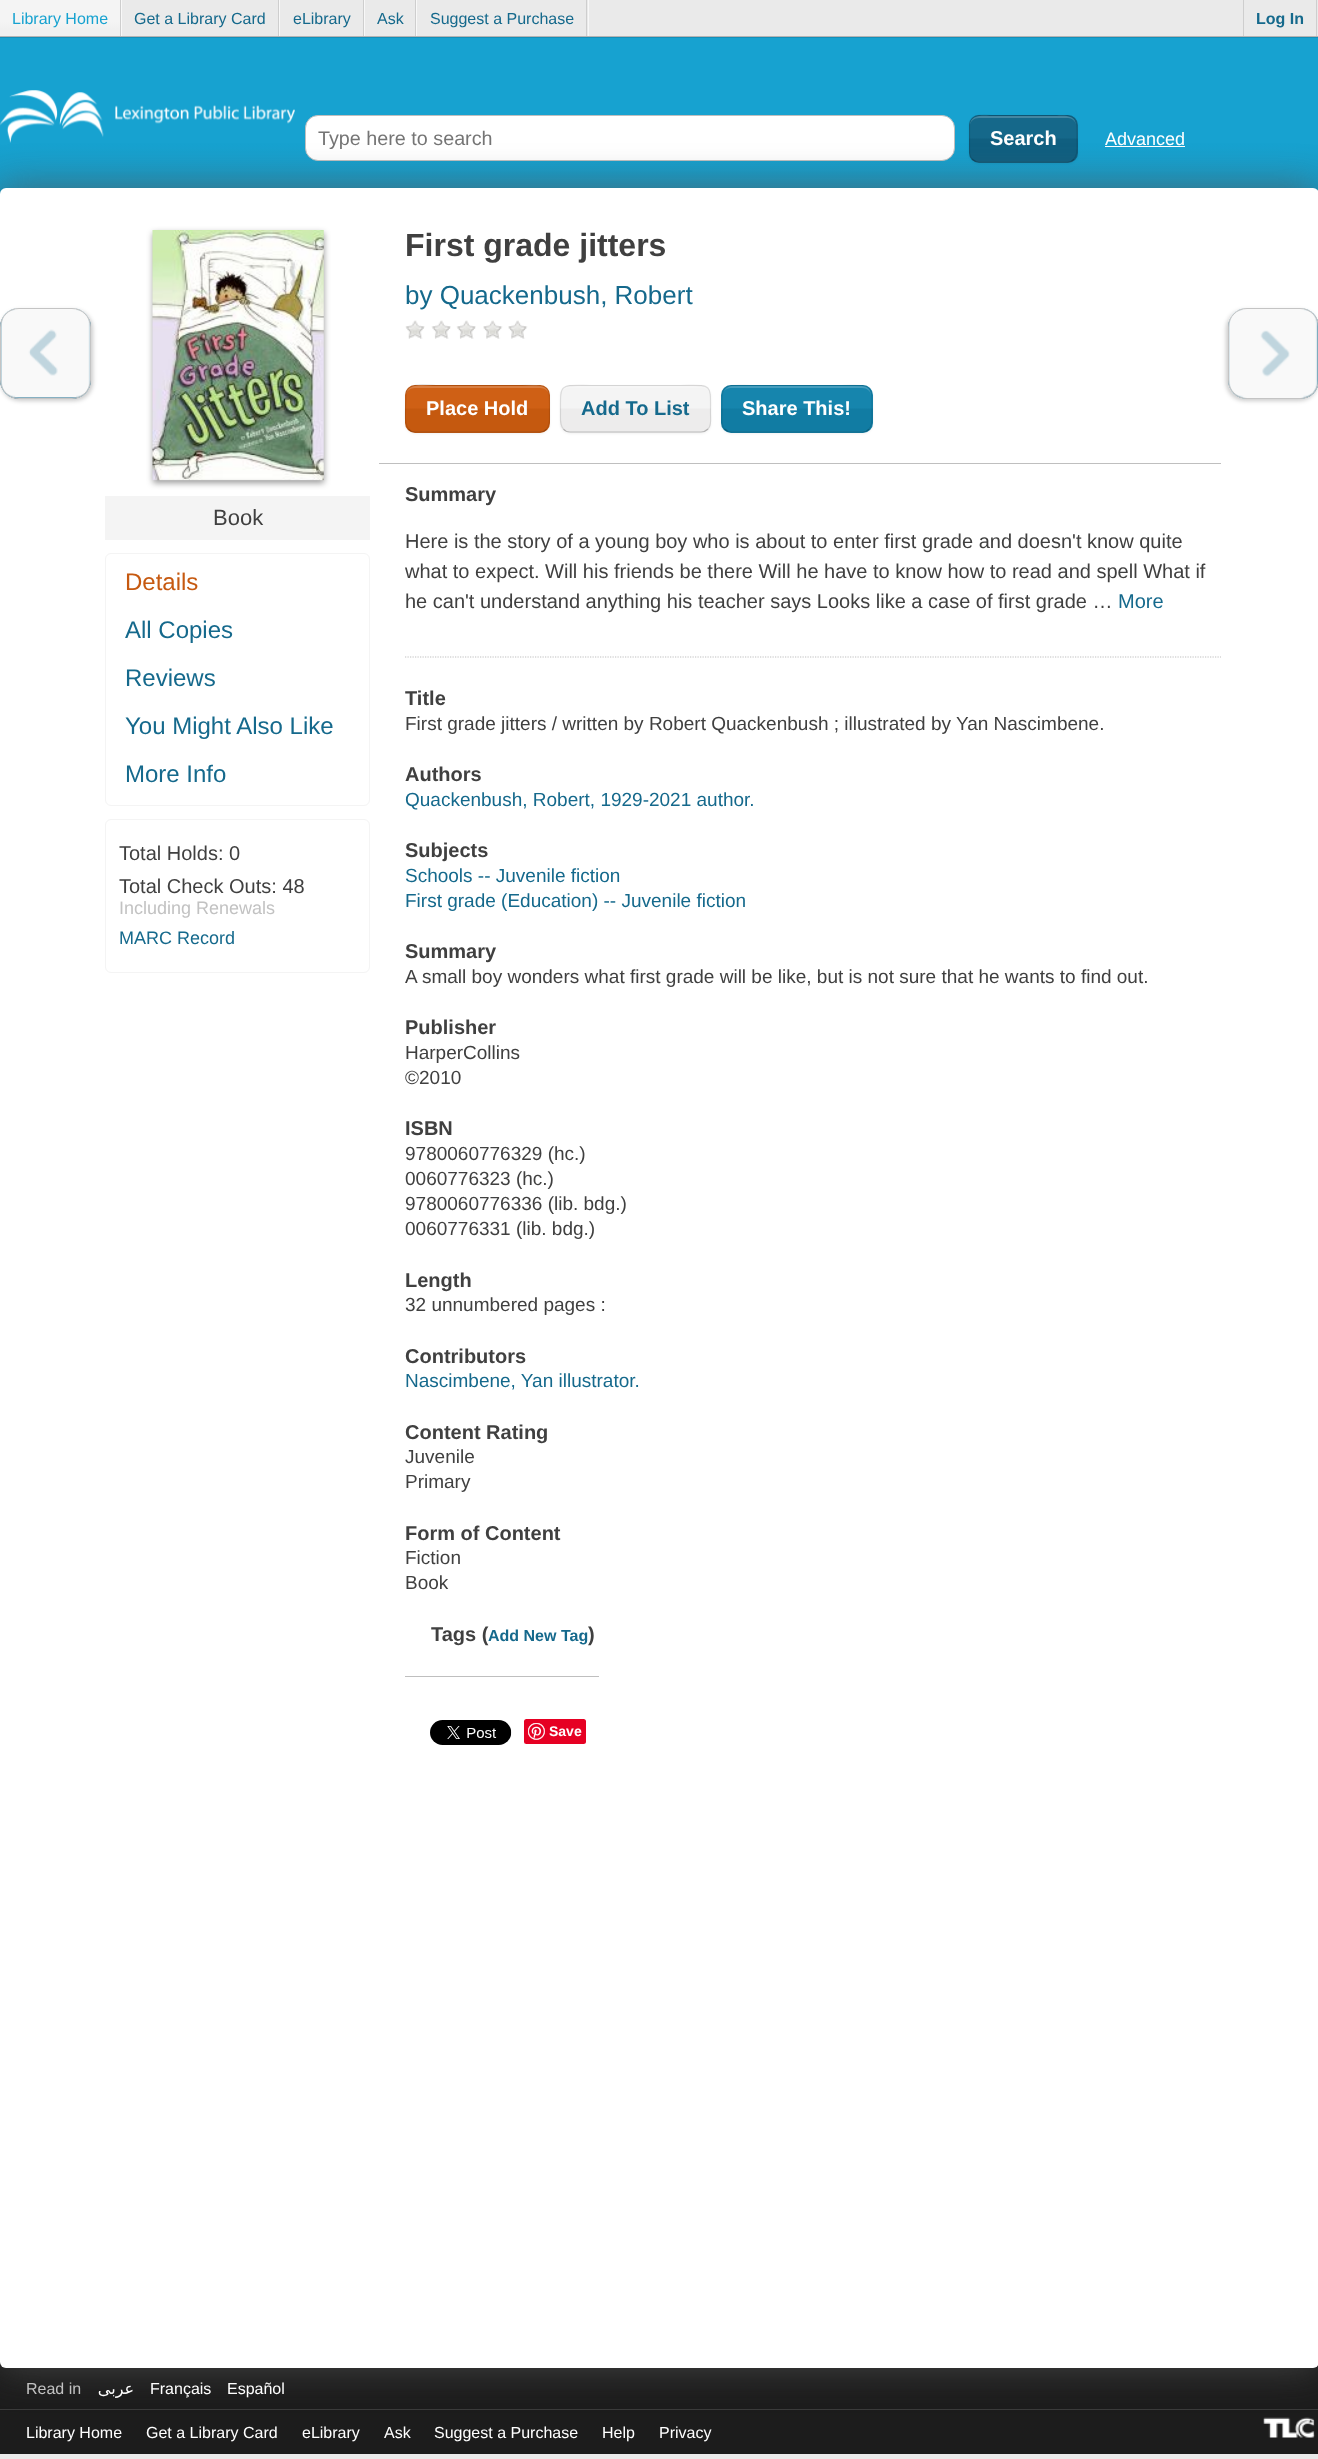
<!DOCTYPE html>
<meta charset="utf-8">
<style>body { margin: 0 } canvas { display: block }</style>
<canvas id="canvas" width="1318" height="2459"></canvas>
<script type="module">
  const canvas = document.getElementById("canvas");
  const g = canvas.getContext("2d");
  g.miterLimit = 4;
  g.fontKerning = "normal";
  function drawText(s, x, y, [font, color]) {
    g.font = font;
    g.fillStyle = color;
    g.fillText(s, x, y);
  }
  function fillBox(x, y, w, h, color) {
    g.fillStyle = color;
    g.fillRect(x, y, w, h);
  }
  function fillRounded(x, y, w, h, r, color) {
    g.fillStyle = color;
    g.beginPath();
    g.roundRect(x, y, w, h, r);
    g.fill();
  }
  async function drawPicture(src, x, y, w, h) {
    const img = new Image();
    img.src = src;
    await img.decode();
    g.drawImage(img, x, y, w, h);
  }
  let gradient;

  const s1 = ["16px Liberation Sans", "#17A2D0"];
  const s2 = ["16px Liberation Sans", "#15698C"];
  const s3 = ["bold 16px Liberation Sans", "#15698C"];
  const s4 = ["19.75px Liberation Sans", "#757575"];
  const s5 = ["bold 20px Liberation Sans", "#FFFFFF"];
  const s6 = ["18px Liberation Sans", "#FFFFFF"];
  const s7 = ["bold 32px Liberation Sans", "#404040"];
  const s8 = ["26px Liberation Sans", "#15698C"];
  const s9 = ["bold 20px Liberation Sans", "#15698C"];
  const s10 = ["bold 20px Liberation Sans", "#404040"];
  const s11 = ["20px Liberation Sans", "#404040"];
  const s12 = ["20px Liberation Sans", "#15698C"];
  const s13 = ["19px Liberation Sans", "#404040"];
  const s14 = ["19px Liberation Sans", "#15698C"];
  const s15 = ["bold 14px Liberation Sans", "#FFFFFF"];
  const s16 = ["22px Liberation Sans", "#404040"];
  const s17 = ["24px Liberation Sans", "#C65910"];
  const s18 = ["24px Liberation Sans", "#15698C"];
  const s19 = ["18px Liberation Sans", "#C2C2C2"];
  const s20 = ["18px Liberation Sans", "#15698C"];
  const s21 = ["16px Liberation Sans", "#C2C2C2"];
  const s22 = ["16px DejaVu Sans", "#FFFFFF"];
  const s23 = ["16px Liberation Sans", "#FFFFFF"];

  fillBox(0, 0, 1318, 2459, "#EAEAEA");
  fillBox(121, 0, 1, 36, "#F8F8F8");
  gradient = g.createLinearGradient(60, 0, 60, 36);
  gradient.addColorStop(0.6, "#F4F4F4");
  gradient.addColorStop(0.8, "#F0F0F0");
  g.fillStyle = gradient;
  g.fillRect(0, 0, 120, 36);
  fillBox(120, 0, 1, 36, "#CECECE");
  drawText("Library Home", 12, 24, s1);
  fillBox(279, 0, 1, 36, "#F8F8F8");
  fillBox(278, 0, 1, 36, "#CECECE");
  drawText("Get a Library Card", 134, 24, s2);
  fillBox(364, 0, 1, 36, "#F8F8F8");
  fillBox(363, 0, 1, 36, "#CECECE");
  drawText("eLibrary", 293, 24, s2);
  fillBox(416, 0, 1, 36, "#F8F8F8");
  fillBox(415, 0, 1, 36, "#CECECE");
  drawText("Ask", 377, 24, s2);
  fillBox(588, 0, 1, 36, "#F8F8F8");
  fillBox(586, 0, 1, 36, "#CECECE");
  drawText("Suggest a Purchase", 430, 24, s2);
  fillBox(1243, 0, 1, 36, "#CECECE");
  fillBox(1316, 0, 1, 36, "#CECECE");
  drawText("Log In", 1256, 24, s3);
  fillBox(0, 37, 1318, 1, "#158FB8");
  gradient = g.createLinearGradient(659, 37, 659, 250);
  gradient.addColorStop(0.5, "#17A2D0");
  gradient.addColorStop(1, "#158FB8");
  g.fillStyle = gradient;
  g.fillRect(0, 38, 1318, 156);
  fillBox(0, 36, 1318, 1, "#B4B4B4");
  await drawPicture("pic1.png", 0, 90, 295, 53);
  g.fillStyle = "#FFFFFF";
  g.beginPath();
  g.roundRect(305.5, 115.5, 649, 45, 12.5);
  g.fill();
  g.strokeStyle = "#BFBFBF";
  g.stroke();
  drawText("Type here to search", 318, 145, s4);
  g.fillStyle = "rgba(0, 0, 0, 0.05)";
  g.filter = "blur(1px)";
  g.beginPath();
  g.roundRect(969, 116, 109, 48, 10);
  g.fill();
  g.filter = "none";
  g.save();
  g.beginPath();
  g.roundRect(969, 115, 109, 48, 10);
  g.clip();
  gradient = g.createLinearGradient(1023, 71, 1023, 116);
  gradient.addColorStop(0.48, "#15688A");
  gradient.addColorStop(0.52, "#105F80");
  g.fillStyle = gradient;
  g.fillRect(969, 115, 109, 1);
  gradient = g.createLinearGradient(1023, 116, 1023, 161);
  gradient.addColorStop(0.48, "#15688A");
  gradient.addColorStop(0.52, "#105F80");
  g.fillStyle = gradient;
  g.fillRect(969, 116, 109, 45);
  gradient = g.createLinearGradient(1023, 161, 1023, 206);
  gradient.addColorStop(0.48, "#15688A");
  gradient.addColorStop(0.52, "#105F80");
  g.fillStyle = gradient;
  g.fillRect(969, 161, 109, 2);
  g.restore();
  g.fillStyle = "#4486A1";
  g.beginPath();
  g.moveTo(979, 118);
  g.lineTo(1068, 118);
  g.bezierCurveTo(1072, 118, 1076, 121, 1076, 126);
  g.bezierCurveTo(1076, 113, 1061, 116, 1052, 116);
  g.lineTo(994, 116);
  g.bezierCurveTo(985, 116, 970, 113, 970, 126);
  g.bezierCurveTo(970, 121, 974, 118, 979, 118);
  g.closePath();
  g.fill();
  g.beginPath();
  g.moveTo(1074, 159);
  g.bezierCurveTo(1072.5, 161, 1070, 162, 1067.5, 162);
  g.lineTo(979, 162);
  g.bezierCurveTo(976.5, 162, 974, 161, 972, 159);
  g.strokeStyle = "rgba(0, 0, 0, 0.25)";
  g.lineWidth = 1.2;
  g.stroke();
  g.beginPath();
  g.moveTo(972, 159);
  g.bezierCurveTo(969, 156, 969.5, 152, 969.5, 148);
  g.lineTo(969.5, 123);
  g.bezierCurveTo(971.5, 112.5, 986.5, 115.5, 993.5, 115.5);
  g.lineTo(1052.5, 115.5);
  g.bezierCurveTo(1077.5, 115.5, 1077, 114.5, 1077, 139);
  g.bezierCurveTo(1077, 144.5, 1078.5, 154.5, 1074, 159);
  g.strokeStyle = "rgba(0, 0, 0, 0.1)";
  g.stroke();
  drawText("Search", 990, 145, s5);
  drawText("Advanced", 1105, 145, s6);
  fillBox(1105, 146, 80, 1, "#FFFFFF");
  gradient = g.createLinearGradient(659, 2305, 659, 2454);
  gradient.addColorStop(0, "#3A3A3A");
  gradient.addColorStop(0.3, "#1C1C1C");
  g.fillStyle = gradient;
  g.fillRect(0, 2362, 1318, 92);
  fillBox(0, 2409, 1318, 1, "#3C3C3C");
  await drawPicture("pic11.png", 1263, 2417, 52, 21);
  g.fillStyle = "rgba(85, 85, 85, 0.7)";
  g.filter = "blur(19px)";
  g.beginPath();
  g.roundRect(0, 188, 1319, 2180, 6);
  g.fill();
  g.filter = "none";
  fillRounded(0, 188, 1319, 2180, 6, "#FFFFFF");
  g.fillStyle = "rgba(0, 0, 0, 0.2)";
  g.filter = "blur(2px)";
  g.beginPath();
  g.roundRect(1, 310, 92, 91, 19);
  g.fill();
  g.filter = "none";
  fillRounded(0, 308, 91, 91, 19, "#15698C");
  await drawPicture("pic2.png", 1, 308, 90, 90);
  g.beginPath();
  g.roundRect(0.5, 308.5, 90, 90, 18.5);
  g.strokeStyle = "#C4C4C4";
  g.lineWidth = 1;
  g.stroke();
  fillBox(379, 463, 842, 1, "#BFBFBF");
  drawText("First grade jitters", 405, 256, s7);
  drawText("by Quackenbush, Robert", 405, 304, s8);
  await drawPicture("pic3.png", 405, 320, 20, 19);
  await drawPicture("pic4.png", 431, 320, 20, 19);
  await drawPicture("pic4.png", 456, 320, 20, 19);
  await drawPicture("pic5.png", 483, 320, 20, 19);
  await drawPicture("pic6.png", 508, 320, 20, 19);
  g.fillStyle = "rgba(0, 0, 0, 0.05)";
  g.filter = "blur(1px)";
  g.beginPath();
  g.roundRect(405, 386, 145, 48, 10);
  g.fill();
  g.filter = "none";
  g.save();
  g.beginPath();
  g.roundRect(405, 385, 145, 48, 10);
  g.clip();
  gradient = g.createLinearGradient(478, 341, 478, 386);
  gradient.addColorStop(0.48, "#CF6015");
  gradient.addColorStop(0.52, "#C5590F");
  g.fillStyle = gradient;
  g.fillRect(405, 385, 145, 1);
  gradient = g.createLinearGradient(478, 386, 478, 431);
  gradient.addColorStop(0.48, "#CF6015");
  gradient.addColorStop(0.52, "#C5590F");
  g.fillStyle = gradient;
  g.fillRect(405, 386, 145, 45);
  gradient = g.createLinearGradient(478, 431, 478, 476);
  gradient.addColorStop(0.48, "#CF6015");
  gradient.addColorStop(0.52, "#C5590F");
  g.fillStyle = gradient;
  g.fillRect(405, 431, 145, 2);
  g.restore();
  g.fillStyle = "rgba(255, 255, 255, 0.2)";
  g.beginPath();
  g.moveTo(415, 388);
  g.lineTo(540, 388);
  g.bezierCurveTo(545, 388, 549, 391, 549, 396);
  g.bezierCurveTo(549, 381, 528, 386, 519, 386);
  g.lineTo(436, 386);
  g.bezierCurveTo(427, 386, 406, 381, 406, 396);
  g.bezierCurveTo(406, 391, 410, 388, 415, 388);
  g.closePath();
  g.fill();
  g.beginPath();
  g.moveTo(546.5, 429);
  g.bezierCurveTo(545, 431, 542.5, 432, 540, 432);
  g.lineTo(415, 432);
  g.bezierCurveTo(412.5, 432, 410, 431, 408.5, 429);
  g.strokeStyle = "rgba(0, 0, 0, 0.25)";
  g.lineWidth = 1.2;
  g.stroke();
  g.beginPath();
  g.moveTo(408.5, 429);
  g.bezierCurveTo(404, 424.5, 405.5, 414.5, 405.5, 409);
  g.lineTo(406, 393);
  g.bezierCurveTo(408.5, 381, 430, 385.5, 436, 385.5);
  g.lineTo(519, 385.5);
  g.bezierCurveTo(551.5, 385.5, 549.5, 383, 549.5, 413.5);
  g.bezierCurveTo(549.5, 418.5, 550.5, 425, 546.5, 429);
  g.strokeStyle = "rgba(0, 0, 0, 0.1)";
  g.stroke();
  drawText("Place Hold", 426, 415, s5);
  g.fillStyle = "rgba(0, 0, 0, 0.05)";
  g.filter = "blur(1px)";
  g.beginPath();
  g.roundRect(560, 386, 151, 48, 10);
  g.fill();
  g.filter = "none";
  g.save();
  g.beginPath();
  g.roundRect(560, 385, 151, 48, 10);
  g.clip();
  gradient = g.createLinearGradient(636, 341, 636, 386);
  gradient.addColorStop(0.48, "#F4F4F4");
  gradient.addColorStop(0.52, "#EDECEC");
  g.fillStyle = gradient;
  g.fillRect(560, 385, 151, 1);
  gradient = g.createLinearGradient(636, 386, 636, 431);
  gradient.addColorStop(0.48, "#F4F4F4");
  gradient.addColorStop(0.52, "#EDECEC");
  g.fillStyle = gradient;
  g.fillRect(560, 386, 151, 45);
  g.restore();
  g.fillStyle = "rgba(255, 255, 255, 0.2)";
  g.beginPath();
  g.moveTo(570, 388);
  g.lineTo(701, 388);
  g.bezierCurveTo(706, 388, 710, 391, 710, 396);
  g.bezierCurveTo(710, 381, 688, 386, 679, 386);
  g.lineTo(592, 386);
  g.bezierCurveTo(583, 386, 561, 381, 561, 396);
  g.bezierCurveTo(561, 391, 565, 388, 570, 388);
  g.closePath();
  g.fill();
  g.beginPath();
  g.moveTo(708, 429);
  g.bezierCurveTo(706, 431, 703.5, 432, 701, 432);
  g.lineTo(570, 432);
  g.bezierCurveTo(567.5, 432, 565, 431, 563.5, 429);
  g.strokeStyle = "rgba(0, 0, 0, 0.25)";
  g.stroke();
  g.beginPath();
  g.moveTo(563.5, 429);
  g.bezierCurveTo(559.5, 425, 560.5, 418.5, 560.5, 413.5);
  g.bezierCurveTo(560.5, 382, 558.5, 385.5, 592, 385.5);
  g.lineTo(679.5, 385.5);
  g.bezierCurveTo(713, 385.5, 710.5, 382, 710.5, 413.5);
  g.bezierCurveTo(710.5, 418.5, 712, 425, 708, 429);
  g.strokeStyle = "rgba(0, 0, 0, 0.1)";
  g.stroke();
  drawText("Add To List", 581, 415, s9);
  g.fillStyle = "rgba(0, 0, 0, 0.05)";
  g.filter = "blur(1px)";
  g.beginPath();
  g.roundRect(721, 386, 152, 48, 10);
  g.fill();
  g.filter = "none";
  g.save();
  g.beginPath();
  g.roundRect(721, 385, 152, 48, 10);
  g.clip();
  gradient = g.createLinearGradient(797, 341, 797, 386);
  gradient.addColorStop(0.48, "#1685AD");
  gradient.addColorStop(0.52, "#117CA3");
  g.fillStyle = gradient;
  g.fillRect(721, 385, 152, 1);
  gradient = g.createLinearGradient(797, 386, 797, 431);
  gradient.addColorStop(0.48, "#1685AD");
  gradient.addColorStop(0.52, "#117CA3");
  g.fillStyle = gradient;
  g.fillRect(721, 386, 152, 45);
  gradient = g.createLinearGradient(797, 431, 797, 476);
  gradient.addColorStop(0.48, "#1685AD");
  gradient.addColorStop(0.52, "#117CA3");
  g.fillStyle = gradient;
  g.fillRect(721, 431, 152, 2);
  g.restore();
  g.fillStyle = "#459DBD";
  g.beginPath();
  g.moveTo(731, 388);
  g.lineTo(862, 388);
  g.bezierCurveTo(867, 388, 871, 391, 871, 396);
  g.lineTo(871, 395);
  g.bezierCurveTo(871, 390, 867, 386, 862, 386);
  g.lineTo(732, 386);
  g.bezierCurveTo(729, 386, 726, 388, 724, 391);
  g.bezierCurveTo(726, 389, 728, 388, 731, 388);
  g.closePath();
  g.fill();
  g.beginPath();
  g.moveTo(869, 429);
  g.bezierCurveTo(867.5, 431, 865, 432, 862.5, 432);
  g.lineTo(731, 432);
  g.bezierCurveTo(729, 432, 726.5, 431, 724.5, 429);
  g.strokeStyle = "rgba(0, 0, 0, 0.25)";
  g.stroke();
  g.beginPath();
  g.moveTo(724.5, 429);
  g.bezierCurveTo(720.5, 425, 722, 418.5, 722, 413.5);
  g.bezierCurveTo(722, 382, 719.5, 385.5, 753, 385.5);
  g.lineTo(840.5, 385.5);
  g.bezierCurveTo(874, 385.5, 872, 382, 872, 413.5);
  g.bezierCurveTo(872, 418.5, 873, 425, 869, 429);
  g.strokeStyle = "rgba(0, 0, 0, 0.1)";
  g.stroke();
  drawText("Share This!", 742, 415, s5);
  drawText("Summary", 405, 501, s10);
  g.beginPath();
  g.moveTo(405, 657);
  g.lineTo(1221, 657);
  g.strokeStyle = "#BFBFBF";
  g.setLineDash([1.25, 1.25]);
  g.stroke();
  drawText("Here is the story of a young boy who is about to enter first grade and doesn't know quite", 405, 548, s11);
  drawText("what to expect. Will his friends be there Will he have to know how to read and spell What if", 405, 578, s11);
  drawText("he can't understand anything his teacher says Looks like a case of first grade …", 405, 608, s11);
  drawText("More", 1118, 608, s12);
  drawText("Title", 405, 705, s10);
  drawText("First grade jitters / written by Robert Quackenbush ; illustrated by Yan Nascimbene.", 405, 730, s13);
  drawText("Authors", 405, 781, s10);
  drawText("Quackenbush, Robert, 1929-2021 author.", 405, 806, s14);
  drawText("Subjects", 405, 857, s10);
  drawText("Schools -- Juvenile fiction", 405, 882, s14);
  drawText("First grade (Education) -- Juvenile fiction", 405, 907, s14);
  drawText("Summary", 405, 958, s10);
  drawText("A small boy wonders what first grade will be like, but is not sure that he wants to find out.", 405, 983, s13);
  drawText("Publisher", 405, 1034, s10);
  drawText("HarperCollins", 405, 1059, s13);
  drawText("©2010", 405, 1084, s13);
  drawText("ISBN", 405, 1135, s10);
  drawText("9780060776329 (hc.)", 405, 1160, s13);
  drawText("0060776323 (hc.)", 405, 1185, s13);
  drawText("9780060776336 (lib. bdg.)", 405, 1210, s13);
  drawText("0060776331 (lib. bdg.)", 405, 1235, s13);
  drawText("Length", 405, 1287, s10);
  drawText("32 unnumbered pages :", 405, 1311, s13);
  drawText("Contributors", 405, 1363, s10);
  drawText("Nascimbene, Yan illustrator.", 405, 1387, s14);
  drawText("Content Rating", 405, 1439, s10);
  drawText("Juvenile", 405, 1463, s13);
  drawText("Primary", 405, 1488, s13);
  drawText("Form of Content", 405, 1540, s10);
  drawText("Fiction", 405, 1564, s13);
  drawText("Book", 405, 1589, s13);
  drawText("Tags (", 431, 1641, s10);
  drawText("Add New Tag", 488, 1641, s3);
  drawText(")", 588, 1641, s10);
  fillBox(405, 1676, 194, 1, "#BFBFBF");
  await drawPicture("pic7.png", 430, 1720, 82, 25);
  fillRounded(524, 1719, 62, 25, 2.5, "#E60023");
  await drawPicture("pic8.png", 528, 1723, 17, 17);
  drawText("Save", 549, 1736, s15);
  g.fillStyle = "rgba(0, 0, 0, 0.2)";
  g.filter = "blur(2px)";
  g.beginPath();
  g.roundRect(1226, 310, 92, 91, 19);
  g.fill();
  g.filter = "none";
  fillRounded(1228, 308, 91, 91, 19, "#15698C");
  await drawPicture("pic9.png", 1228, 308, 90, 91);
  g.beginPath();
  g.roundRect(1228.5, 308.5, 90, 90, 18.5);
  g.strokeStyle = "#C4C4C4";
  g.lineWidth = 1;
  g.setLineDash([]);
  g.stroke();
  g.fillStyle = "rgba(0, 0, 0, 0.4)";
  g.filter = "blur(3px)";
  g.beginPath();
  g.rect(153, 233, 171, 250);
  g.fill();
  g.filter = "none";
  await drawPicture("pic10.png", 152, 230, 172, 251);
  fillBox(105, 496, 265, 44, "#F4F4F4");
  drawText("Book", 213, 525, s16);
  g.beginPath();
  g.roundRect(105.5, 553.5, 264, 252, 5.5);
  g.strokeStyle = "#F4F4F4";
  g.stroke();
  drawText("Details", 125, 590, s17);
  drawText("All Copies", 125, 638, s18);
  drawText("Reviews", 125, 686, s18);
  drawText("You Might Also Like", 125, 734, s18);
  drawText("More Info", 125, 782, s18);
  g.beginPath();
  g.roundRect(105.5, 819.5, 264, 153, 5.5);
  g.stroke();
  drawText("Total Holds: 0", 119, 860, s11);
  drawText("Total Check Outs: 48", 119, 893, s11);
  drawText("Including Renewals", 119, 914, s19);
  drawText("MARC Record", 119, 944, s20);
  drawText("Read in", 26, 2394, s21);
  g.direction = "rtl";
  drawText("عربى", 134, 2394, s22);
  g.direction = "ltr";
  drawText("Français", 150, 2394, s23);
  drawText("Español", 227, 2394, s23);
  drawText("Library Home", 26, 2438, s23);
  drawText("Get a Library Card", 146, 2438, s23);
  drawText("eLibrary", 302, 2438, s23);
  drawText("Ask", 384, 2438, s23);
  drawText("Suggest a Purchase", 434, 2438, s23);
  drawText("Help", 602, 2438, s23);
  drawText("Privacy", 659, 2438, s23);
</script>
